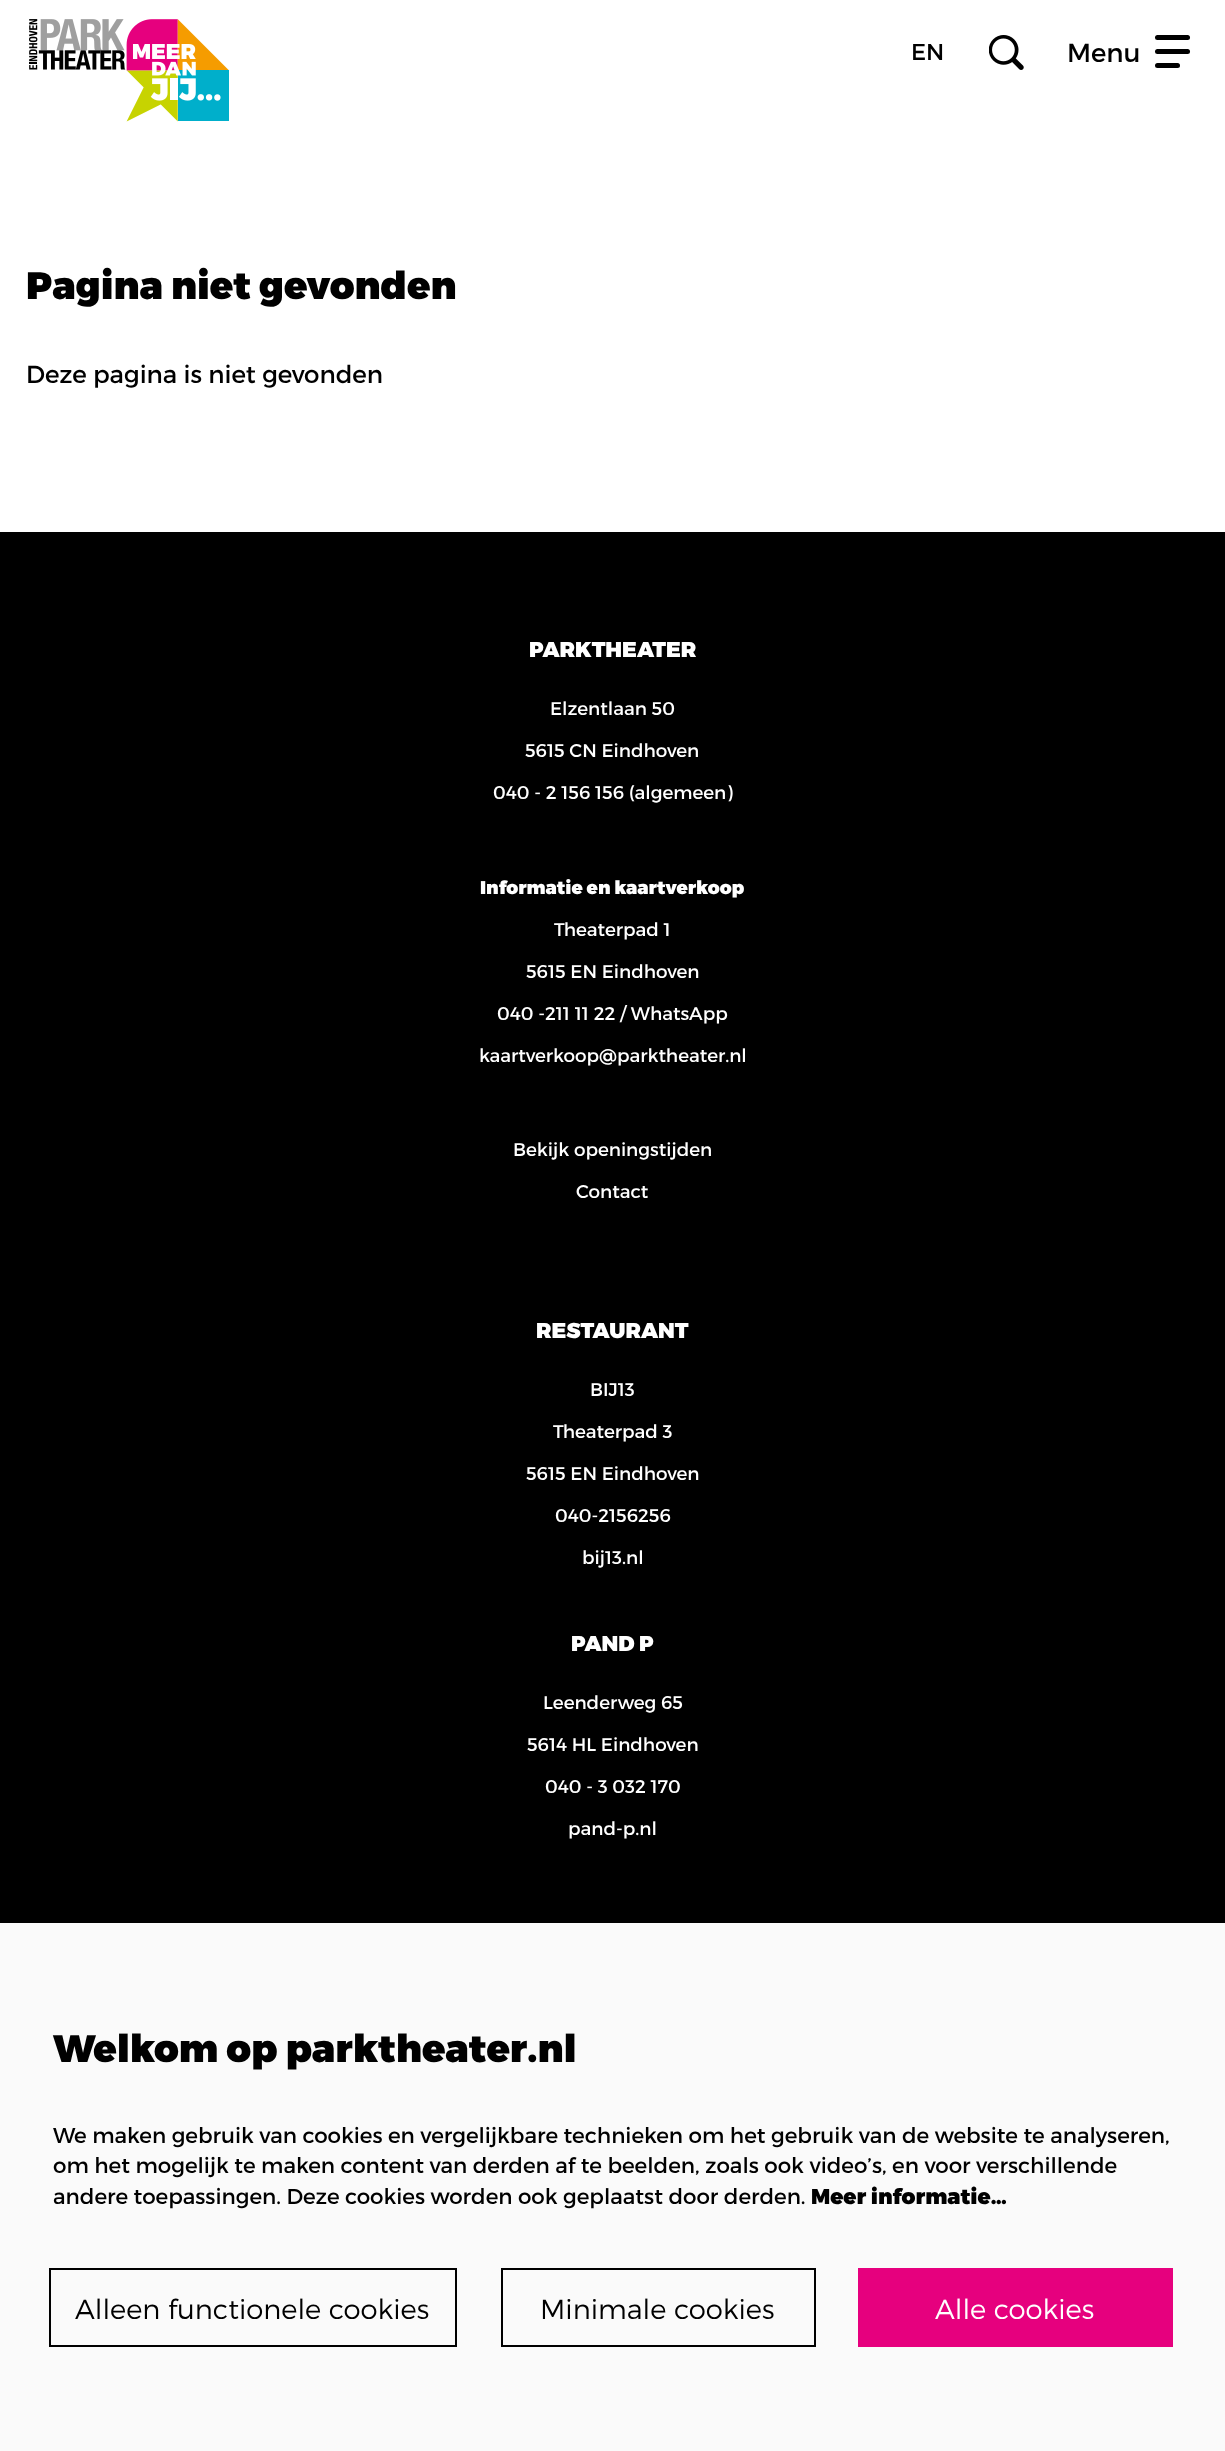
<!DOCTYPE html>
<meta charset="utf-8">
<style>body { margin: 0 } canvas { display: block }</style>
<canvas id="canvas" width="1225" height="2451"></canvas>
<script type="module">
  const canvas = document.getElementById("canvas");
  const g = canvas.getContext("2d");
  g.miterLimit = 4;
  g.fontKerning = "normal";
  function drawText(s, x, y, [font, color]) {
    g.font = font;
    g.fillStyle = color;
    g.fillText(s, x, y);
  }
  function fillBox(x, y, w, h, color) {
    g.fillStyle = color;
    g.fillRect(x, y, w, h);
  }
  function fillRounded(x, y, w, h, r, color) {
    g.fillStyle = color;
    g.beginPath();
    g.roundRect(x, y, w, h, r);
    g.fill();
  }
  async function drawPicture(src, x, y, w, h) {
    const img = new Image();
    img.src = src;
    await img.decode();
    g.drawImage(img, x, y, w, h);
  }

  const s1 = ["23px Montserrat", "#000000"];
  const s2 = ["26px Montserrat", "#000000"];
  const s3 = ["900 38.25px Montserrat", "#000000"];
  const s4 = ["24.5px Montserrat", "#000000"];
  const s5 = ["900 21.45px Montserrat", "#FFFFFF"];
  const s6 = ["18.4px Montserrat", "#FFFFFF"];
  const s7 = ["900 18.4px Montserrat", "#FFFFFF"];
  const s8 = ["21.45px Montserrat", "#000000"];
  const s9 = ["900 21.45px Montserrat", "#000000"];
  const s10 = ["300 27.5px Montserrat", "#000000"];
  const s11 = ["300 27.5px Montserrat", "#FFFFFF"];

  fillBox(0, 0, 1225, 2451, "#FFFFFF");
  await drawPicture("pic1.png", 29, 19, 200, 103);
  drawText("EN", 911, 60, s1);
  await drawPicture("pic2.png", 989, 35, 35, 35);
  drawText("Menu", 1067, 62, s2);
  fillRounded(1155, 35, 35, 5, 2.5, "#000000");
  fillRounded(1155, 49, 35, 5, 2.5, "#000000");
  fillRounded(1155, 63, 25, 5, 2.5, "#000000");
  drawText("Pagina niet gevonden", 26, 299, s3);
  drawText("Deze pagina is niet gevonden", 26, 383, s4);
  fillBox(0, 532, 1225, 1391, "#000000");
  drawText("PARKTHEATER", 529, 657, s5);
  drawText("Elzentlaan 50", 550, 715, s6);
  drawText("5615 CN Eindhoven", 525, 757, s6);
  drawText("040 - 2 156 156 (algemeen)", 493, 799, s6);
  drawText("Informatie en kaartverkoop", 480, 894, s7);
  drawText("Theaterpad 1", 554, 936, s6);
  drawText("5615 EN Eindhoven", 526, 978, s6);
  drawText("040 -211 11 22 / WhatsApp", 497, 1020, s6);
  drawText("kaartverkoop@parktheater.nl", 479, 1062, s6);
  drawText("Bekijk openingstijden", 513, 1156, s6);
  drawText("Contact", 576, 1198, s6);
  drawText("RESTAURANT", 536, 1338, s5);
  drawText("BIJ13", 590, 1396, s6);
  drawText("Theaterpad 3", 553, 1438, s6);
  drawText("5615 EN Eindhoven", 526, 1480, s6);
  drawText("040-2156256", 555, 1522, s6);
  drawText("bij13.nl", 582, 1564, s6);
  drawText("PAND P", 571, 1651, s5);
  drawText("Leenderweg 65", 543, 1709, s6);
  drawText("5614 HL Eindhoven", 527, 1751, s6);
  drawText("040 - 3 032 170", 545, 1793, s6);
  drawText("pand-p.nl", 568, 1835, s6);
  fillBox(0, 1923, 1225, 528, "#FAFAFA");
  drawText("Welkom op parktheater.nl", 53, 2062, s3);
  drawText("We maken gebruik van cookies en vergelijkbare technieken om het gebruik van de website te analyseren,", 53, 2143, s8);
  drawText("om het mogelijk te maken content van derden af te beelden, zoals ook video’s, en voor verschillende", 53, 2173, s8);
  drawText("andere toepassingen. Deze cookies worden ook geplaatst door derden.", 53, 2204, s8);
  drawText("Meer informatie…", 811, 2204, s9);
  g.strokeStyle = "#000000";
  g.lineWidth = 2;
  g.strokeRect(50, 2269, 406, 77);
  drawText("Alleen functionele cookies", 75, 2319, s10);
  g.strokeRect(502, 2269, 313, 77);
  drawText("Minimale cookies", 540, 2319, s10);
  fillBox(858, 2268, 315, 79, "#E6007E");
  drawText("Alle cookies", 935, 2319, s11);
</script>
